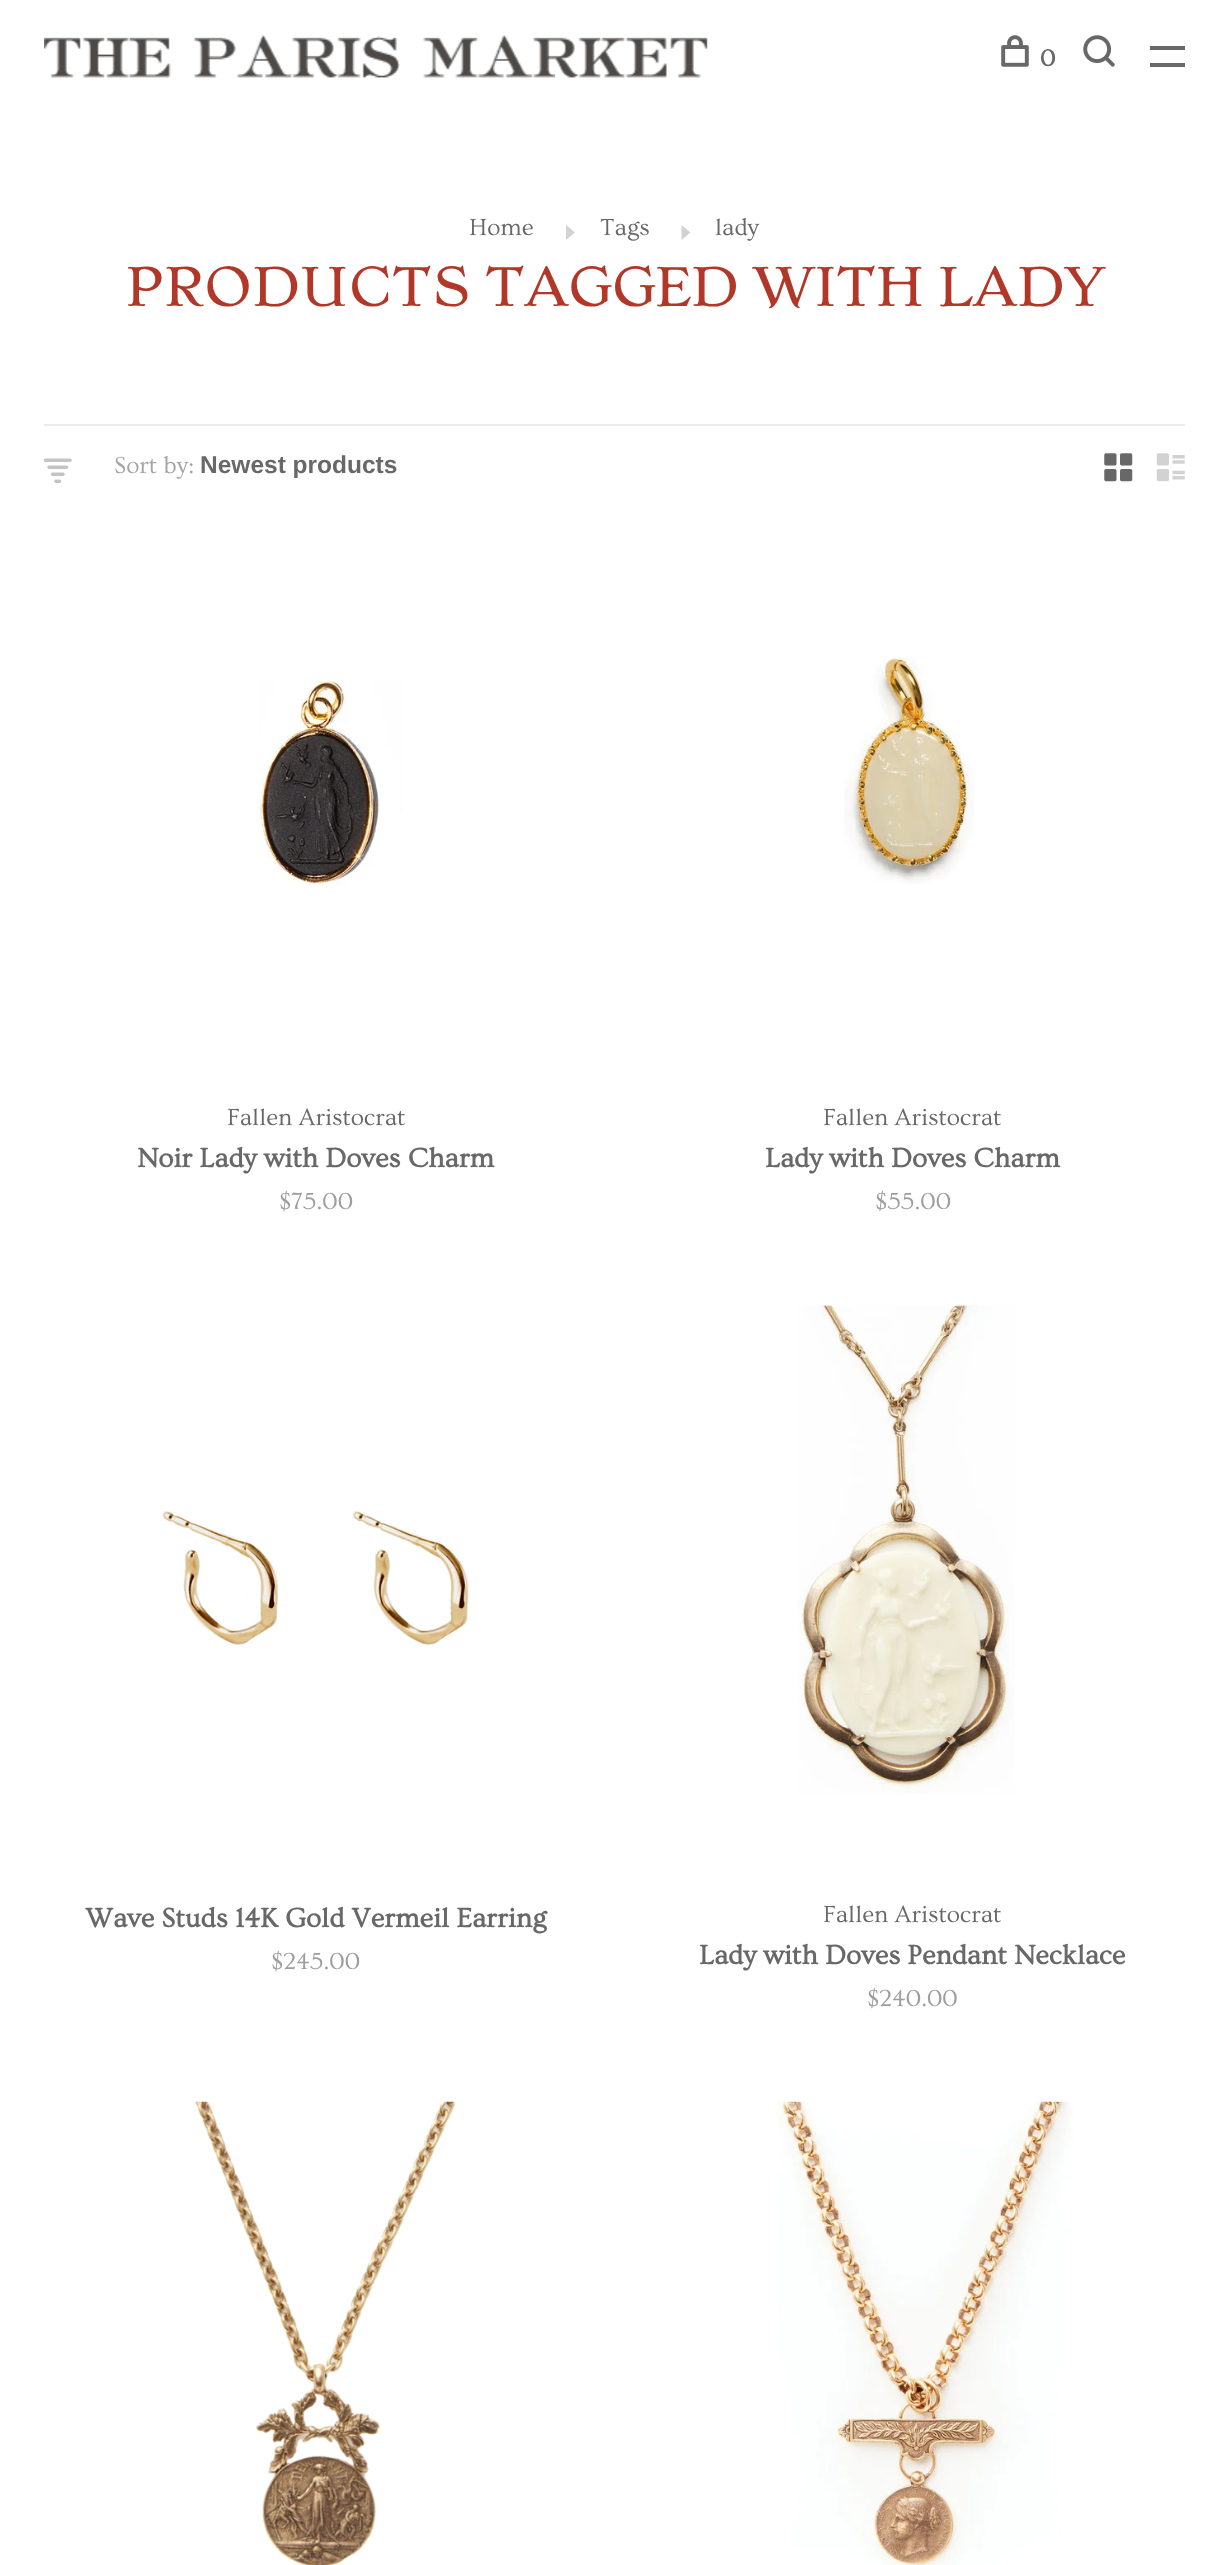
<!DOCTYPE html>
<meta charset="utf-8">
<style>body { margin: 0 } canvas { display: block }</style>
<canvas id="canvas" width="1228" height="2565"></canvas>
<script type="module">
  const canvas = document.getElementById("canvas");
  const g = canvas.getContext("2d");
  g.miterLimit = 4;
  g.fontKerning = "normal";
  function drawText(s, x, y, [font, color]) {
    g.font = font;
    g.fillStyle = color;
    g.fillText(s, x, y);
  }
  function fillBox(x, y, w, h, color) {
    g.fillStyle = color;
    g.fillRect(x, y, w, h);
  }
  async function drawPicture(src, x, y, w, h) {
    const img = new Image();
    img.src = src;
    await img.decode();
    g.drawImage(img, x, y, w, h);
  }

  const s1 = ["bold 24.5px Ovo", "#696868"];
  const s2 = ["24.5px Ovo", "#696868"];
  const s3 = ["300 52.5px Stoke", "#B13829"];
  const s4 = ["24.5px Ovo", "#A5A4A4"];
  const s5 = ["bold 24.5px Liberation Sans", "#696868"];
  const s6 = ["bold 28px Ovo", "#696868"];
  const s7 = ["24.5px Ovo", "#9E9D9D"];

  fillBox(0, 0, 1228, 2565, "#FFFFFF");
  await drawPicture("pic1.png", 44, 35, 664, 43);
  await drawPicture("pic2.png", 1001, 35, 28, 32);
  drawText("0", 1040, 66, s1);
  await drawPicture("pic3.png", 1083, 35, 32, 32);
  fillBox(1150, 46, 35, 4, "#696868");
  fillBox(1150, 63, 35, 4, "#696868");
  drawText("Home", 469, 235, s2);
  g.fillStyle = "#D2D2D2";
  g.beginPath();
  g.moveTo(566, 240);
  g.lineTo(575, 232.5);
  g.lineTo(566, 225);
  g.closePath();
  g.fill();
  drawText("Tags", 600, 235, s2);
  g.fillStyle = "#D2D2D2";
  g.beginPath();
  g.moveTo(681.5, 240);
  g.lineTo(690.5, 232.5);
  g.lineTo(681.5, 225);
  g.closePath();
  g.fill();
  drawText("lady", 715, 235, s2);
  drawText("PRODUCTS TAGGED WITH LADY", 125, 306, s3);
  fillBox(44, 424, 1141, 2, "#EBEBEB");
  await drawPicture("pic4.png", 43, 458, 29, 25);
  drawText("Sort by:", 114, 473, s4);
  drawText("Newest products", 200, 473, s5);
  await drawPicture("pic5.png", 1104, 453, 29, 29);
  await drawPicture("pic6.png", 1156, 453, 29, 29);
  await drawPicture("pic7.png", 258, 680, 144, 206);
  drawText("Fallen Aristocrat", 227, 1125, s2);
  drawText("Noir Lady with Doves Charm", 137, 1167, s6);
  drawText("$75.00", 279, 1209, s7);
  await drawPicture("pic8.png", 844, 657, 130, 227);
  drawText("Fallen Aristocrat", 823, 1125, s2);
  drawText("Lady with Doves Charm", 765, 1167, s6);
  drawText("$55.00", 875, 1209, s7);
  await drawPicture("pic9.png", 162, 1511, 307, 134);
  drawText("Wave Studs 14K Gold Vermeil Earring", 85, 1927, s6);
  drawText("$245.00", 271, 1969, s7);
  await drawPicture("pic10.png", 798, 1305, 217, 489);
  drawText("Fallen Aristocrat", 823, 1922, s2);
  drawText("Lady with Doves Pendant Necklace", 699, 1964, s6);
  drawText("$240.00", 867, 2006, s7);
  await drawPicture("pic11.png", 195, 2101, 261, 464);
  await drawPicture("pic12.png", 778, 2101, 295, 464);
</script>
